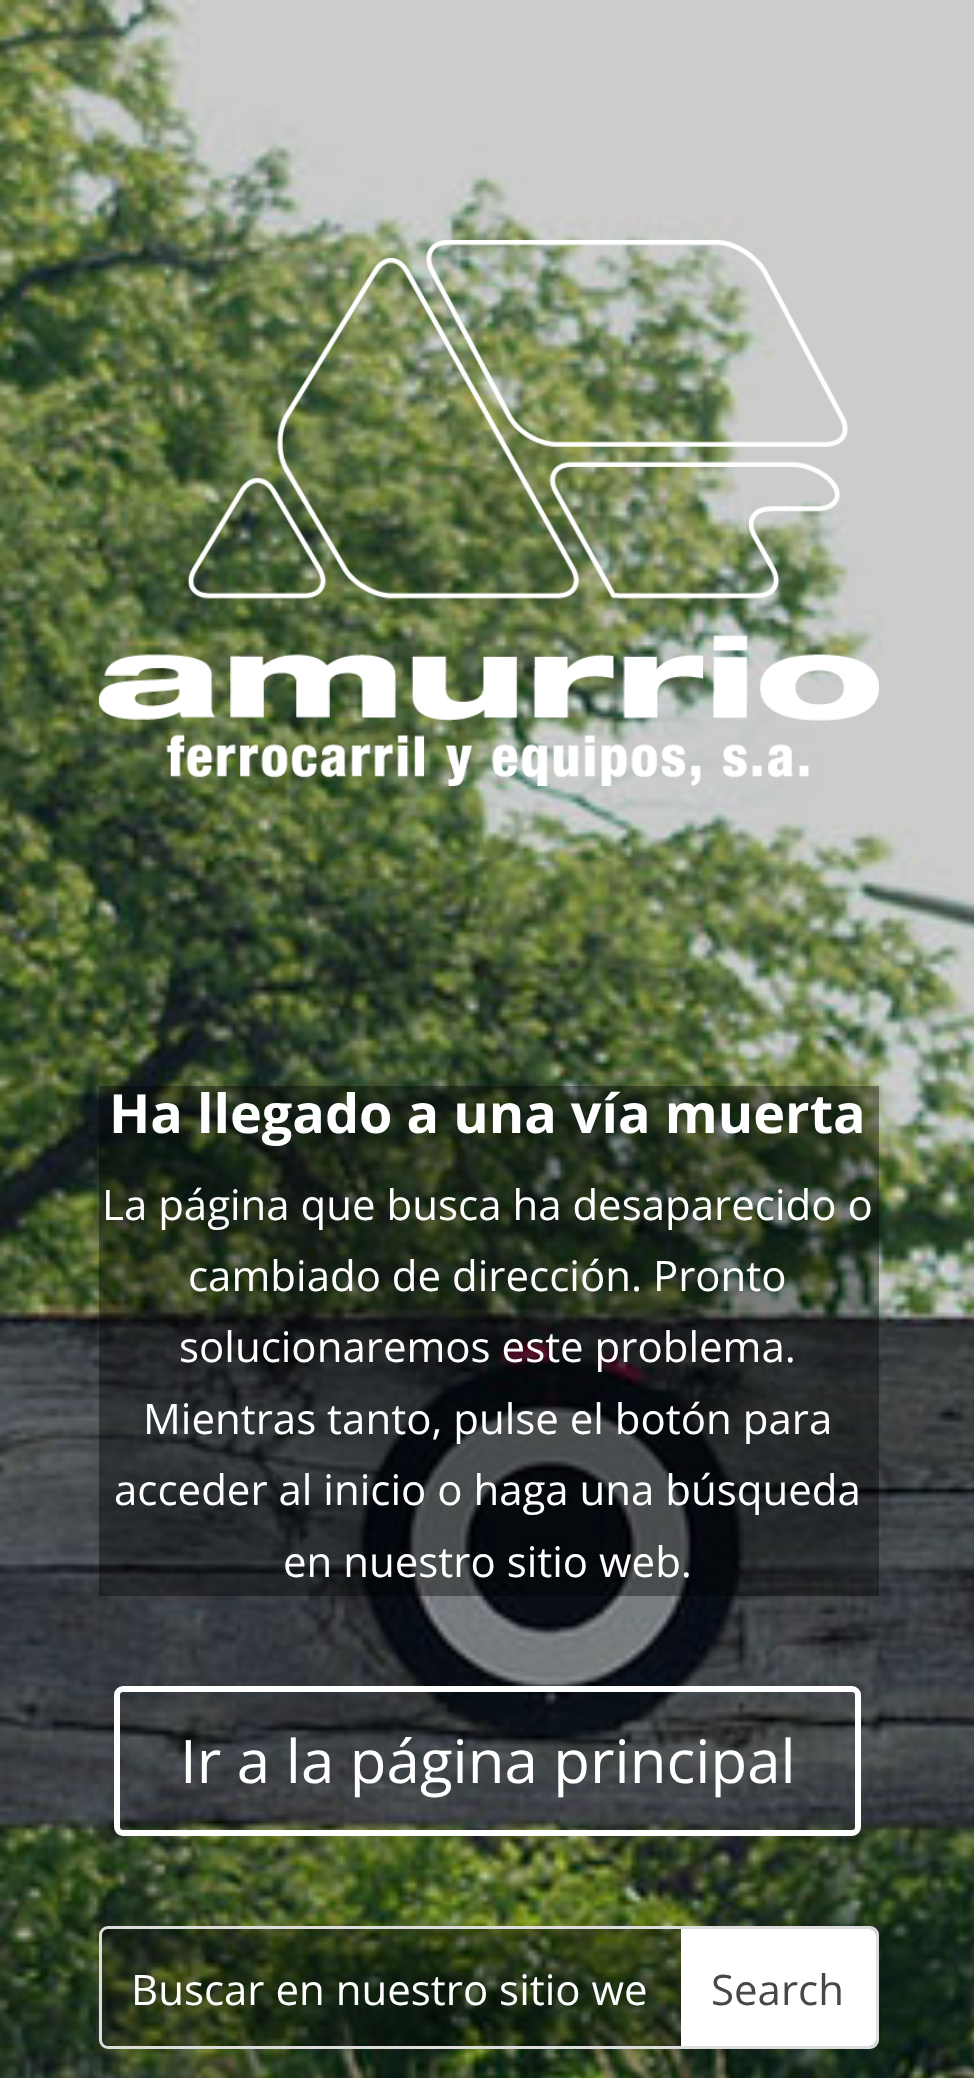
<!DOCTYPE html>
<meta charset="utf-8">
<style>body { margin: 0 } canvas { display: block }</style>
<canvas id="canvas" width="974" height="2078"></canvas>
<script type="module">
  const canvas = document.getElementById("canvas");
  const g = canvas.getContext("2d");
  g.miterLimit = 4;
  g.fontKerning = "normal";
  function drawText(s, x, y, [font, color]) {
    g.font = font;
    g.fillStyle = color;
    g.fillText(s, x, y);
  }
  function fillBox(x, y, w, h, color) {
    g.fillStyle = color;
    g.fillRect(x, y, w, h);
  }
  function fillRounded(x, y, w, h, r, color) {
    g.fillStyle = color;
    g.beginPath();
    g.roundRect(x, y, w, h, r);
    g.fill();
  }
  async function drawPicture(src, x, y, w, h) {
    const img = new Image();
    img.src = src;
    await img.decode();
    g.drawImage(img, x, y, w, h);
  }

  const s1 = ["bold 54px Open Sans", "#FFFFFF"];
  const s2 = ["42px Open Sans", "#FFFFFF"];
  const s3 = ["60px Open Sans", "#FFFFFF"];
  const s4 = ["42px Open Sans", "#474747"];

  fillBox(0, 0, 974, 2078, "#FFFFFF");
  await drawPicture("pic1.png", 0, 0, 974, 2078);
  await drawPicture("pic2.png", 99, 240, 780, 546);
  fillBox(99, 1086, 780, 510, "rgba(0, 0, 0, 0.38)");
  drawText("Ha llegado a una vía muerta", 109, 1133, s1);
  drawText("La página que busca ha desaparecido o", 102, 1220, s2);
  drawText("cambiado de dirección. Pronto", 188, 1291, s2);
  drawText("solucionaremos este problema.", 179, 1362, s2);
  drawText("Mientras tanto, pulse el botón para", 143, 1434, s2);
  drawText("acceder al inicio o haga una búsqueda", 114, 1505, s2);
  drawText("en nuestro sitio web.", 283, 1577, s2);
  g.beginPath();
  g.roundRect(117, 1689, 741, 144, 6);
  g.strokeStyle = "#FFFFFF";
  g.lineWidth = 6;
  g.stroke();
  drawText("Ir a la página principal", 180, 1783, s3);
  g.beginPath();
  g.roundRect(100.5, 1927.5, 777, 120, 7.5);
  g.strokeStyle = "#DDDDDD";
  g.lineWidth = 3;
  g.stroke();
  fillRounded(102, 1929, 774, 117, 6, "rgba(0, 0, 0, 0.34)");
  drawText("Buscar en nuestro sitio we", 131, 2005, s2);
  g.beginPath();
  g.roundRect(681, 1929, 195, 117, [0, 6, 6, 0]);
  g.fill();
  drawText("Search", 711, 2005, s4);
</script>
